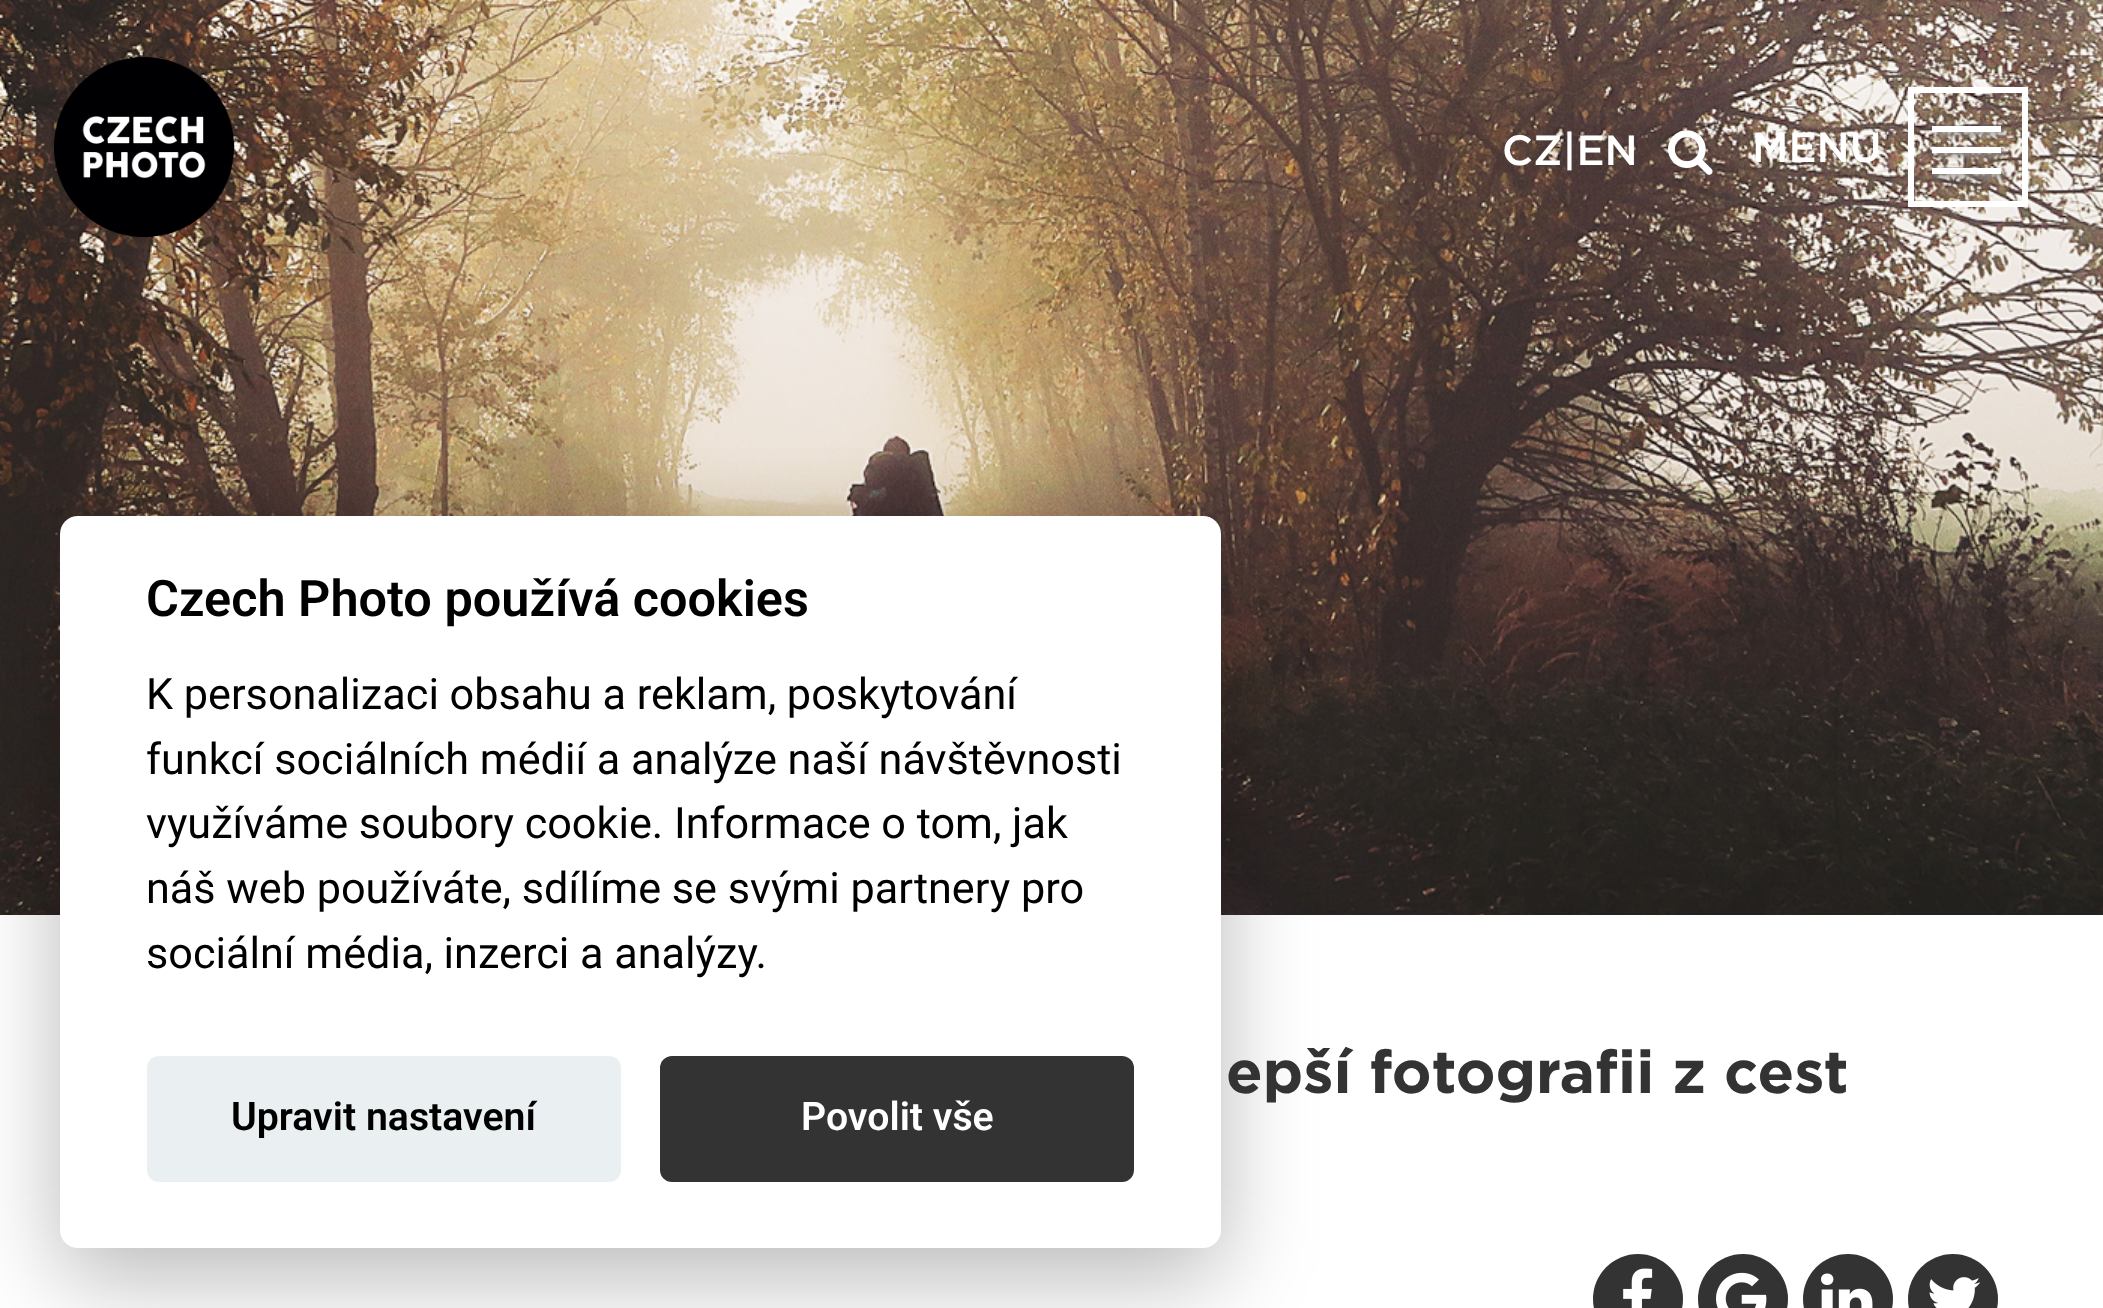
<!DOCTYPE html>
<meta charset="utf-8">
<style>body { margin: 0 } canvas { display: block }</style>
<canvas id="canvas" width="2103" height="1308"></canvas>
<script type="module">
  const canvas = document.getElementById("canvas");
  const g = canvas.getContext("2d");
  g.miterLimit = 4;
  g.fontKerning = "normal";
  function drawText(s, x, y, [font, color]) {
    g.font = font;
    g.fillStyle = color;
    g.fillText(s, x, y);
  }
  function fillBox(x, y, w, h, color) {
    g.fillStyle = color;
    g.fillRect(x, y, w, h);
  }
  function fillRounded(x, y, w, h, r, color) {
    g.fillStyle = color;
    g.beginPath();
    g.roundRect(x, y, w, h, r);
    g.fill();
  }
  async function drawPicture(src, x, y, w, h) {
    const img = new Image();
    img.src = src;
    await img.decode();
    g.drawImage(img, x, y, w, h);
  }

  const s1 = ["500 42px Gotham", "#FFFFFF"];
  const s2 = ["600 50.4px Roboto", "#000000"];
  const s3 = ["43.2px Roboto", "#000000"];
  const s4 = ["600 39.25px Roboto", "#000000"];
  const s5 = ["600 39.25px Roboto", "#FFFFFF"];
  const s6 = ["bold 60px Gotham", "#333333"];

  fillBox(0, 0, 2103, 1308, "#FFFFFF");
  await drawPicture("pic3.png", 0, 0, 2103, 915);
  await drawPicture("pic1.png", 54, 57, 180, 180);
  drawText("CZ|EN", 1502, 165, s1);
  await drawPicture("pic2.png", 1668, 130, 45, 45);
  g.strokeStyle = "#FFFFFF";
  g.lineWidth = 6;
  g.strokeRect(1911, 90, 114, 114);
  drawText("MENU", 1752, 162, s1);
  g.fillStyle = "#999797";
  g.filter = "blur(3px)";
  g.beginPath();
  g.rect(1935, 129, 69, 6);
  g.fill();
  g.filter = "none";
  fillBox(1932, 126, 69, 6, "#FFFFFF");
  g.fillStyle = "#999797";
  g.filter = "blur(3px)";
  g.beginPath();
  g.rect(1935, 150, 69, 6);
  g.fill();
  g.filter = "none";
  fillBox(1932, 147, 69, 6, "#FFFFFF");
  g.fillStyle = "#999797";
  g.filter = "blur(3px)";
  g.beginPath();
  g.rect(1935, 171, 69, 6);
  g.fill();
  g.filter = "none";
  fillBox(1932, 168, 69, 6, "#FFFFFF");
  g.fillStyle = "rgba(2, 2, 3, 0.28)";
  g.filter = "blur(45px)";
  g.beginPath();
  g.roundRect(60, 546, 1161, 732, 18);
  g.fill();
  g.filter = "none";
  fillRounded(60, 516, 1161, 732, 18, "#FFFFFF");
  drawText("Czech Photo používá cookies", 146, 616, s2);
  drawText("K personalizaci obsahu a reklam, poskytování", 146, 709, s3);
  drawText("funkcí sociálních médií a analýze naší návštěvnosti", 146, 774, s3);
  drawText("využíváme soubory cookie. Informace o tom, jak", 146, 838, s3);
  drawText("náš web používáte, sdílíme se svými partnery pro", 146, 903, s3);
  drawText("sociální média, inzerci a analýzy.", 146, 968, s3);
  fillRounded(147, 1056, 474, 126, 12, "#EAEFF2");
  drawText("Upravit nastavení", 231, 1130, s4);
  fillRounded(660, 1056, 474, 126, 12, "#333333");
  drawText("Povolit vše", 801, 1130, s5);
  drawText("epší fotografii z cest", 1226, 1093, s6);
  g.beginPath();
  g.arc(1638, 1299, 45, 0, Math.PI * 2);
  g.fill();
  await drawPicture("pic4.png", 1623, 1268, 30, 40);
  g.beginPath();
  g.arc(1743, 1299, 45, 0, Math.PI * 2);
  g.fill();
  await drawPicture("pic5.png", 1716, 1272, 51, 36);
  g.beginPath();
  g.arc(1848, 1299, 45, 0, Math.PI * 2);
  g.fill();
  await drawPicture("pic6.png", 1821, 1273, 52, 35);
  g.beginPath();
  g.arc(1953, 1299, 45, 0, Math.PI * 2);
  g.fill();
  await drawPicture("pic7.png", 1929, 1277, 52, 31);
</script>
